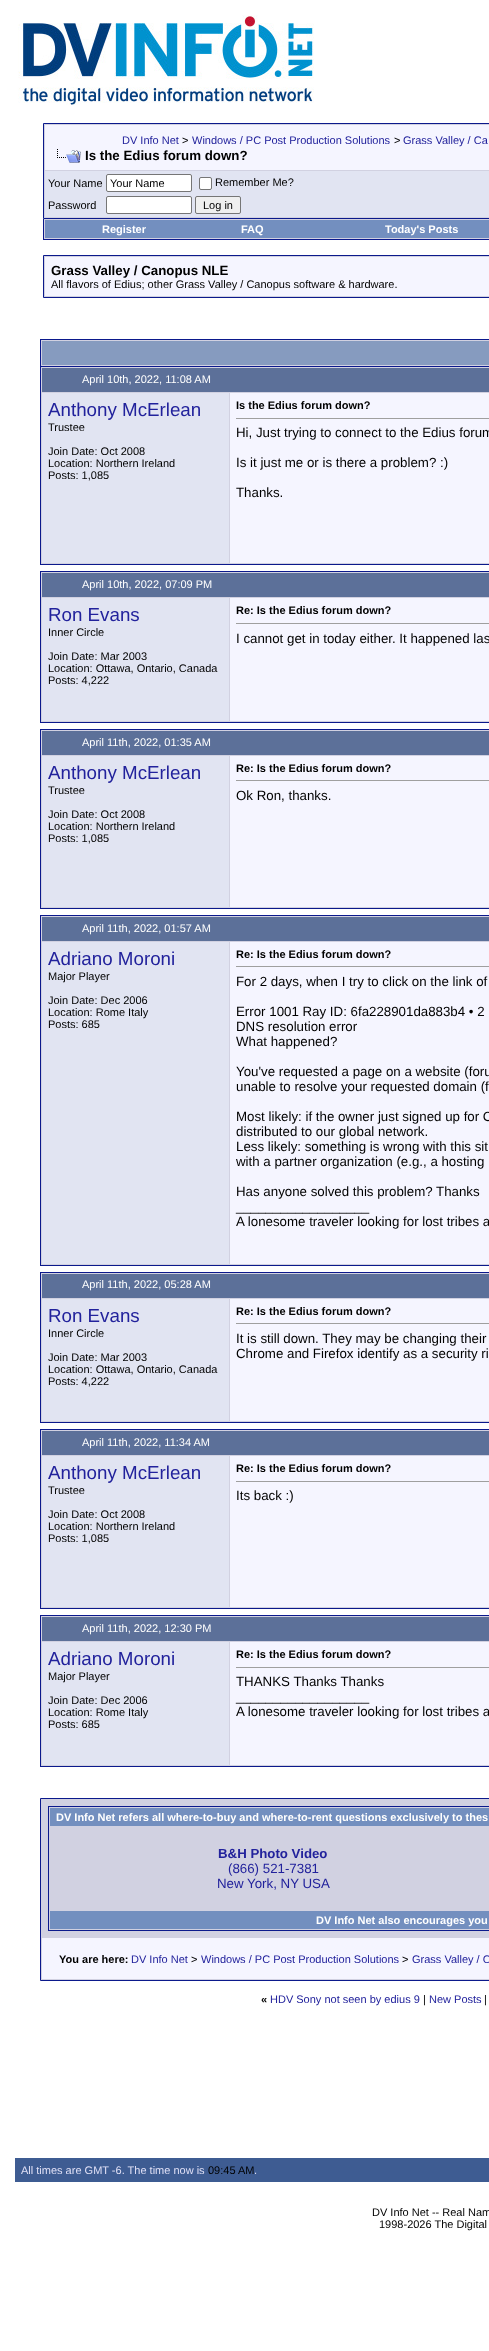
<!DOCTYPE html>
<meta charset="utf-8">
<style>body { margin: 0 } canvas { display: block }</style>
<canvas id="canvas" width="489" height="2351"></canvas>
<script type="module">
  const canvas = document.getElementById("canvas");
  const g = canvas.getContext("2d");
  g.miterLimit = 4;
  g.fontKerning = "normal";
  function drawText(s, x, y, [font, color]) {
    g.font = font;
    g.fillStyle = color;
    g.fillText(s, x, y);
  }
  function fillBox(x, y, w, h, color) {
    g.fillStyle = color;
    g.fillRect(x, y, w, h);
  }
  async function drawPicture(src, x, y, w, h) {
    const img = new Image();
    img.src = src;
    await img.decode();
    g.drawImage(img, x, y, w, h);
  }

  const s1 = ["11px Liberation Sans", "#22229C"];
  const s2 = ["11px Liberation Sans", "#000000"];
  const s3 = ["bold 13.3px Liberation Sans", "#000000"];
  const s4 = ["bold 11px Liberation Sans", "#FFFFFF"];
  const s5 = ["11px Liberation Sans", "#FFFFFF"];
  const s6 = ["18.75px Liberation Sans", "#22229C"];
  const s7 = ["bold 11px Liberation Sans", "#000000"];
  const s8 = ["13.3px Liberation Sans", "#000000"];
  const s9 = ["bold 13.25px Liberation Sans", "#22229C"];
  const s10 = ["13.3px Liberation Sans", "#22229C"];
  const s11 = ["11px Liberation Sans", "#E0E0F6"];

  fillBox(0, 0, 489, 2351, "#FFFFFF");
  await drawPicture("pic1.png", 18, 15, 296, 90);
  g.fillStyle = "#D1D1E1";
  g.beginPath();
  g.rect(43.5, 123.5, 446, 95);
  g.fill();
  g.strokeStyle = "#0B198C";
  g.stroke();
  fillBox(45, 125, 444, 45, "#F5F5FF");
  drawText("DV Info Net", 122, 144, s1);
  drawText(">", 182, 144, s2);
  drawText("Windows / PC Post Production Solutions", 192, 144, s1);
  drawText(">", 394, 144, s2);
  drawText("Grass Valley / Ca", 403, 144, s1);
  await drawPicture("pic2.png", 57, 149, 24, 14);
  drawText("Is the Edius forum down?", 85, 160, s3);
  fillBox(45, 171, 444, 46, "#E1E4F2");
  drawText("Your Name", 48, 187, s2);
  g.fillStyle = "#FFFFFF";
  g.beginPath();
  g.roundRect(106.5, 174.5, 85, 17, 1.5);
  g.fill();
  g.strokeStyle = "#767676";
  g.stroke();
  drawText("Your Name", 110, 187, s2);
  g.fillStyle = "#FFFFFF";
  g.beginPath();
  g.roundRect(199.5, 177.5, 12, 12, 1.5);
  g.fill();
  g.stroke();
  drawText("Remember Me?", 215, 186, s2);
  drawText("Password", 48, 209, s2);
  g.fillStyle = "#FFFFFF";
  g.beginPath();
  g.roundRect(106.5, 196.5, 85, 17, 1.5);
  g.fill();
  g.stroke();
  g.fillStyle = "#EFEFEF";
  g.beginPath();
  g.roundRect(195.5, 196.5, 45, 17, 1.5);
  g.fill();
  g.stroke();
  drawText("Log in", 203, 209, s2);
  fillBox(44, 219, 445, 20, "#D1D1E1");
  fillBox(43, 239, 446, 1, "#0B198C");
  fillBox(43, 219, 1, 21, "#0B198C");
  fillBox(45, 220, 444, 18, "#738FBF");
  drawText("Register", 102, 233, s4);
  drawText("FAQ", 241, 233, s4);
  drawText("Today's Posts", 385, 233, s4);
  g.fillStyle = "#D1D1E1";
  g.beginPath();
  g.rect(43.5, 255.5, 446, 42);
  g.fill();
  g.strokeStyle = "#0B198C";
  g.stroke();
  fillBox(45, 257, 444, 39, "#F5F5FF");
  drawText("Grass Valley / Canopus NLE", 51, 275, s3);
  drawText("All flavors of Edius; other Grass Valley / Canopus software & hardware.", 51, 288, s2);
  fillBox(41, 340, 448, 26, "#D1D1E1");
  fillBox(40, 339, 449, 1, "#0B198C");
  fillBox(40, 339, 1, 27, "#0B198C");
  fillBox(42, 341, 447, 24, "#869BBF");
  g.strokeRect(40.5, 366.5, 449, 198);
  fillBox(42, 368, 447, 24, "#5C7099");
  fillBox(41, 367, 448, 1, "#D1D1E1");
  fillBox(41, 392, 448, 1, "#D1D1E1");
  fillBox(41, 367, 1, 139, "#D1D1E1");
  drawText("April 10th, 2022, 11:08 AM", 82, 383, s5);
  fillBox(42, 393, 187, 170, "#E1E4F2");
  fillBox(229, 393, 1, 171, "#D1D1E1");
  drawText("Anthony McErlean", 48, 416, s6);
  drawText("Trustee", 48, 431, s2);
  drawText("Join Date: Oct 2008", 48, 455, s2);
  drawText("Location: Northern Ireland", 48, 467, s2);
  drawText("Posts: 1,085", 48, 479, s2);
  fillBox(230, 393, 259, 170, "#F5F5FF");
  drawText("Is the Edius forum down?", 236, 409, s7);
  fillBox(236, 418, 253, 1, "#9F9F9F");
  drawText("Hi, Just trying to connect to the Edius forum", 236, 437, s8);
  drawText("Is it just me or is there a problem? :)", 236, 467, s8);
  drawText("Thanks.", 236, 497, s8);
  fillBox(41, 563, 448, 1, "#D1D1E1");
  fillBox(41, 506, 1, 58, "#D1D1E1");
  g.strokeRect(40.5, 571.5, 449, 151);
  fillBox(42, 573, 447, 24, "#5C7099");
  fillBox(41, 572, 448, 1, "#D1D1E1");
  fillBox(41, 597, 448, 1, "#D1D1E1");
  fillBox(41, 572, 1, 120, "#D1D1E1");
  drawText("April 10th, 2022, 07:09 PM", 82, 588, s5);
  fillBox(42, 598, 187, 123, "#E1E4F2");
  fillBox(229, 598, 1, 124, "#D1D1E1");
  drawText("Ron Evans", 48, 621, s6);
  drawText("Inner Circle", 48, 636, s2);
  drawText("Join Date: Mar 2003", 48, 660, s2);
  drawText("Location: Ottawa, Ontario, Canada", 48, 672, s2);
  drawText("Posts: 4,222", 48, 684, s2);
  fillBox(230, 598, 259, 123, "#F5F5FF");
  drawText("Re: Is the Edius forum down?", 236, 614, s7);
  fillBox(236, 623, 253, 1, "#9F9F9F");
  drawText("I cannot get in today either. It happened las", 236, 643, s8);
  fillBox(41, 721, 448, 1, "#D1D1E1");
  fillBox(41, 692, 1, 30, "#D1D1E1");
  g.strokeRect(40.5, 729.5, 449, 179);
  fillBox(42, 731, 447, 24, "#5C7099");
  fillBox(41, 730, 448, 1, "#D1D1E1");
  fillBox(41, 755, 448, 1, "#D1D1E1");
  fillBox(41, 730, 1, 120, "#D1D1E1");
  drawText("April 11th, 2022, 01:35 AM", 82, 746, s5);
  fillBox(42, 756, 187, 151, "#E1E4F2");
  fillBox(229, 756, 1, 152, "#D1D1E1");
  drawText("Anthony McErlean", 48, 779, s6);
  drawText("Trustee", 48, 794, s2);
  drawText("Join Date: Oct 2008", 48, 818, s2);
  drawText("Location: Northern Ireland", 48, 830, s2);
  drawText("Posts: 1,085", 48, 842, s2);
  fillBox(230, 756, 259, 151, "#F5F5FF");
  drawText("Re: Is the Edius forum down?", 236, 772, s7);
  fillBox(236, 780, 253, 1, "#9F9F9F");
  drawText("Ok Ron, thanks.", 236, 800, s8);
  fillBox(41, 907, 448, 1, "#D1D1E1");
  fillBox(41, 850, 1, 58, "#D1D1E1");
  g.strokeRect(40.5, 915.5, 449, 350);
  fillBox(42, 917, 447, 24, "#5C7099");
  fillBox(41, 916, 448, 1, "#D1D1E1");
  fillBox(41, 941, 448, 1, "#D1D1E1");
  fillBox(41, 916, 1, 319, "#D1D1E1");
  drawText("April 11th, 2022, 01:57 AM", 82, 932, s5);
  fillBox(42, 942, 187, 322, "#E1E4F2");
  fillBox(229, 942, 1, 323, "#D1D1E1");
  drawText("Adriano Moroni", 48, 965, s6);
  drawText("Major Player", 48, 980, s2);
  drawText("Join Date: Dec 2006", 48, 1004, s2);
  drawText("Location: Rome Italy", 48, 1016, s2);
  drawText("Posts: 685", 48, 1028, s2);
  fillBox(230, 942, 259, 322, "#F5F5FF");
  drawText("Re: Is the Edius forum down?", 236, 958, s7);
  fillBox(236, 966, 253, 1, "#9F9F9F");
  drawText("For 2 days, when I try to click on the link of", 236, 986, s8);
  drawText("Error 1001 Ray ID: 6fa228901da883b4 • 2", 236, 1016, s8);
  drawText("DNS resolution error", 236, 1031, s8);
  drawText("What happened?", 236, 1046, s8);
  drawText("You've requested a page on a website (foru", 236, 1076, s8);
  drawText("unable to resolve your requested domain (f", 236, 1091, s8);
  drawText("Most likely: if the owner just signed up for C", 236, 1121, s8);
  drawText("distributed to our global network.", 236, 1136, s8);
  drawText("Less likely: something is wrong with this sit", 236, 1151, s8);
  drawText("with a partner organization (e.g., a hosting", 236, 1166, s8);
  drawText("Has anyone solved this problem? Thanks", 236, 1196, s8);
  drawText("__________________", 236, 1211, s8);
  drawText("A lonesome traveler looking for lost tribes a", 236, 1226, s8);
  fillBox(41, 1264, 448, 1, "#D1D1E1");
  fillBox(41, 1235, 1, 30, "#D1D1E1");
  g.strokeRect(40.5, 1272.5, 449, 150);
  fillBox(42, 1274, 447, 24, "#5C7099");
  fillBox(41, 1273, 448, 1, "#D1D1E1");
  fillBox(41, 1298, 448, 1, "#D1D1E1");
  fillBox(41, 1273, 1, 120, "#D1D1E1");
  drawText("April 11th, 2022, 05:28 AM", 82, 1288, s5);
  fillBox(42, 1299, 187, 122, "#E1E4F2");
  fillBox(229, 1299, 1, 123, "#D1D1E1");
  drawText("Ron Evans", 48, 1322, s6);
  drawText("Inner Circle", 48, 1337, s2);
  drawText("Join Date: Mar 2003", 48, 1361, s2);
  drawText("Location: Ottawa, Ontario, Canada", 48, 1373, s2);
  drawText("Posts: 4,222", 48, 1385, s2);
  fillBox(230, 1299, 259, 122, "#F5F5FF");
  drawText("Re: Is the Edius forum down?", 236, 1315, s7);
  fillBox(236, 1323, 253, 1, "#9F9F9F");
  drawText("It is still down. They may be changing their", 236, 1343, s8);
  drawText("Chrome and Firefox identify as a security ri", 236, 1358, s8);
  fillBox(41, 1421, 448, 1, "#D1D1E1");
  fillBox(41, 1393, 1, 29, "#D1D1E1");
  g.strokeRect(40.5, 1429.5, 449, 179);
  fillBox(42, 1431, 447, 24, "#5C7099");
  fillBox(41, 1430, 448, 1, "#D1D1E1");
  fillBox(41, 1455, 448, 1, "#D1D1E1");
  fillBox(41, 1430, 1, 120, "#D1D1E1");
  drawText("April 11th, 2022, 11:34 AM", 82, 1446, s5);
  fillBox(42, 1456, 187, 151, "#E1E4F2");
  fillBox(229, 1456, 1, 152, "#D1D1E1");
  drawText("Anthony McErlean", 48, 1479, s6);
  drawText("Trustee", 48, 1494, s2);
  drawText("Join Date: Oct 2008", 48, 1518, s2);
  drawText("Location: Northern Ireland", 48, 1530, s2);
  drawText("Posts: 1,085", 48, 1542, s2);
  fillBox(230, 1456, 259, 151, "#F5F5FF");
  drawText("Re: Is the Edius forum down?", 236, 1472, s7);
  fillBox(236, 1481, 253, 1, "#9F9F9F");
  drawText("Its back :)", 236, 1500, s8);
  fillBox(41, 1607, 448, 1, "#D1D1E1");
  fillBox(41, 1550, 1, 58, "#D1D1E1");
  g.strokeRect(40.5, 1615.5, 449, 151);
  fillBox(42, 1617, 447, 24, "#5C7099");
  fillBox(41, 1616, 448, 1, "#D1D1E1");
  fillBox(41, 1641, 448, 1, "#D1D1E1");
  fillBox(41, 1616, 1, 120, "#D1D1E1");
  drawText("April 11th, 2022, 12:30 PM", 82, 1632, s5);
  fillBox(42, 1642, 187, 123, "#E1E4F2");
  fillBox(229, 1642, 1, 124, "#D1D1E1");
  drawText("Adriano Moroni", 48, 1665, s6);
  drawText("Major Player", 48, 1680, s2);
  drawText("Join Date: Dec 2006", 48, 1704, s2);
  drawText("Location: Rome Italy", 48, 1716, s2);
  drawText("Posts: 685", 48, 1728, s2);
  fillBox(230, 1642, 259, 123, "#F5F5FF");
  drawText("Re: Is the Edius forum down?", 236, 1658, s7);
  fillBox(236, 1667, 253, 1, "#9F9F9F");
  drawText("THANKS Thanks Thanks", 236, 1686, s8);
  drawText("__________________", 236, 1701, s8);
  drawText("A lonesome traveler looking for lost tribes a", 236, 1716, s8);
  fillBox(41, 1765, 448, 1, "#D1D1E1");
  fillBox(41, 1736, 1, 30, "#D1D1E1");
  g.beginPath();
  g.rect(40.5, 1798.5, 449, 182);
  g.fill();
  g.stroke();
  g.strokeRect(48.5, 1806.5, 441, 124);
  fillBox(50, 1808, 439, 18, "#738FBF");
  drawText("DV Info Net refers all where-to-buy and where-to-rent questions exclusively to thes", 56, 1821, s4);
  drawText("B&H Photo Video", 218, 1858, s9);
  drawText("(866) 521-7381", 228, 1873, s10);
  drawText("New York, NY USA", 217, 1888, s10);
  fillBox(50, 1911, 439, 18, "#738FBF");
  drawText("DV Info Net also encourages you", 316, 1924, s4);
  fillBox(42, 1938, 447, 41, "#F5F5FF");
  drawText("You are here:", 59, 1963, s7);
  drawText("DV Info Net", 131, 1963, s1);
  drawText(">", 191, 1963, s2);
  drawText("Windows / PC Post Production Solutions", 201, 1963, s1);
  drawText(">", 402, 1963, s2);
  drawText("Grass Valley / C", 412, 1963, s1);
  drawText("«", 261, 2003, s7);
  drawText("HDV Sony not seen by edius 9", 270, 2003, s1);
  drawText("|", 423, 2003, s2);
  drawText("New Posts", 429, 2003, s1);
  drawText("|", 484, 2003, s2);
  fillBox(15, 2158, 474, 24, "#3E5C92");
  drawText("All times are GMT -6. The time now is", 21, 2174, s11);
  drawText("09:45 AM", 208, 2174, s2);
  drawText(".", 254, 2174, s11);
  drawText("DV Info Net -- Real Nam", 372, 2216, s2);
  drawText("1998-2026 The Digital", 379, 2228, s2);
</script>
